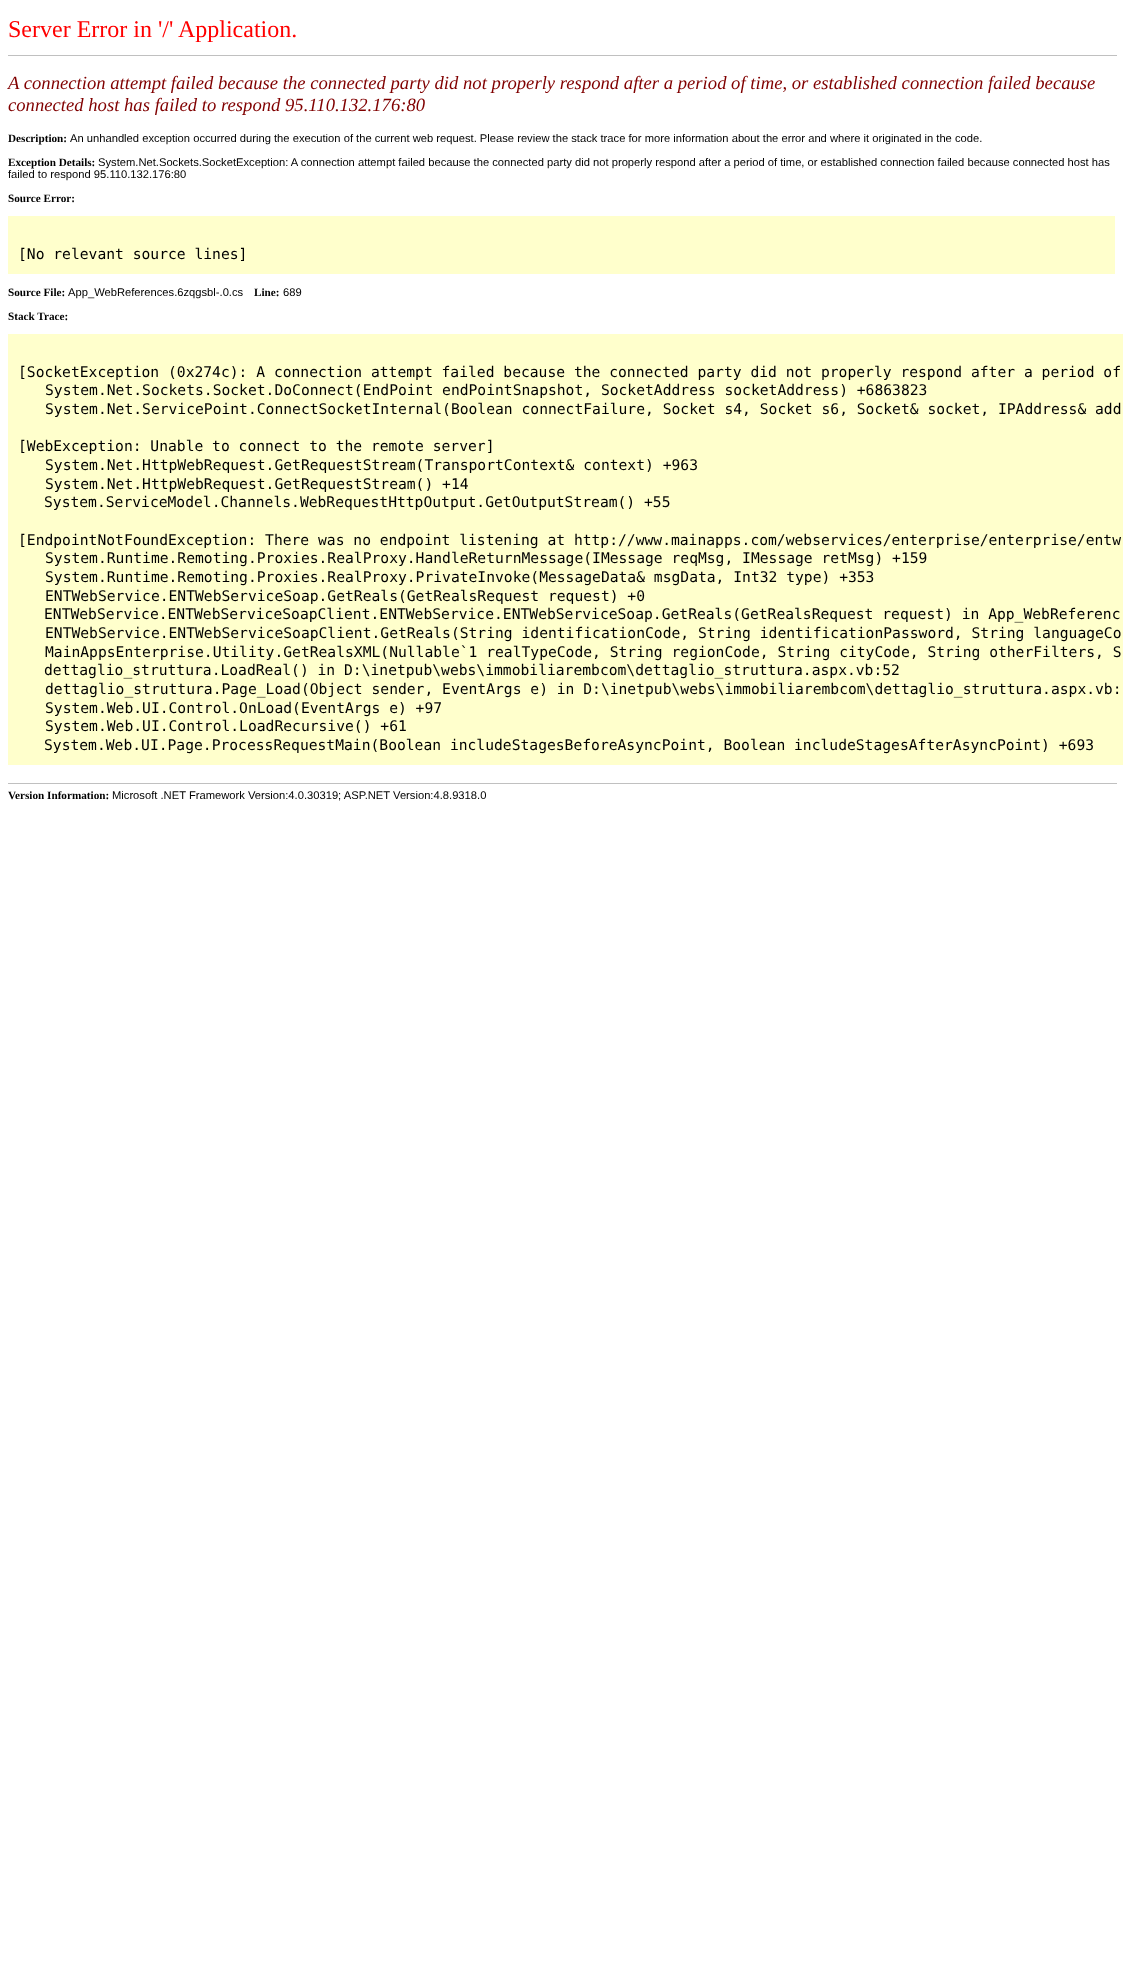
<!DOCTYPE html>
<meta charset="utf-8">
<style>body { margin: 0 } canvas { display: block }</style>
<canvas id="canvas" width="1123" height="1988"></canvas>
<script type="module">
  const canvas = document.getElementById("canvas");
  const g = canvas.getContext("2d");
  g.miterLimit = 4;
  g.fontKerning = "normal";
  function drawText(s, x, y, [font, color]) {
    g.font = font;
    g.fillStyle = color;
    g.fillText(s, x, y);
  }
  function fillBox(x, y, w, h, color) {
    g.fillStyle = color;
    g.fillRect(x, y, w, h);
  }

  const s1 = ["24px Liberation Serif", "#FF0000"];
  const s2 = ["italic 18.67px Liberation Serif", "#800000"];
  const s3 = ["bold 11.2px Liberation Serif", "#000000"];
  const s4 = ["11.2px Liberation Sans", "#000000"];
  const s5 = ["14.67px DejaVu Sans Mono", "#000000"];

  fillBox(0, 0, 1123, 1988, "#FFFFFF");
  drawText("Server Error in '/' Application.", 8, 37, s1);
  fillBox(8, 55, 1109, 1, "#C0C0C0");
  drawText("A connection attempt failed because the connected party did not properly respond after a period of time, or established connection failed because", 8, 89, s2);
  drawText("connected host has failed to respond 95.110.132.176:80", 8, 111, s2);
  drawText("Description:", 8, 142, s3);
  drawText("An unhandled exception occurred during the execution of the current web request. Please review the stack trace for more information about the error and where it originated in the code.", 70, 142, s4);
  drawText("Exception Details:", 8, 166, s3);
  drawText("System.Net.Sockets.SocketException: A connection attempt failed because the connected party did not properly respond after a period of time, or established connection failed because connected host has", 98, 166, s4);
  drawText("failed to respond 95.110.132.176:80", 8, 178, s4);
  drawText("Source Error:", 8, 202, s3);
  fillBox(8, 216, 1107, 58, "#FFFFCC");
  drawText("[No relevant source lines]", 18, 259, s5);
  drawText("Source File:", 8, 296, s3);
  drawText("App_WebReferences.6zqgsbl-.0.cs", 68, 296, s4);
  drawText("Line:", 254, 296, s3);
  drawText("689", 283, 296, s4);
  drawText("Stack Trace:", 8, 320, s3);
  fillBox(8, 334, 1115, 431, "#FFFFCC");
  drawText("[SocketException (0x274c): A connection attempt failed because the connected party did not properly respond after a period of", 18, 377, s5);
  drawText("System.Net.Sockets.Socket.DoConnect(EndPoint endPointSnapshot, SocketAddress socketAddress) +6863823", 45, 395, s5);
  drawText("System.Net.ServicePoint.ConnectSocketInternal(Boolean connectFailure, Socket s4, Socket s6, Socket& socket, IPAddress& add", 45, 414, s5);
  drawText("[WebException: Unable to connect to the remote server]", 18, 451, s5);
  drawText("System.Net.HttpWebRequest.GetRequestStream(TransportContext& context) +963", 45, 470, s5);
  drawText("System.Net.HttpWebRequest.GetRequestStream() +14", 45, 489, s5);
  drawText("System.ServiceModel.Channels.WebRequestHttpOutput.GetOutputStream() +55", 44, 507, s5);
  drawText("[EndpointNotFoundException: There was no endpoint listening at http://www.mainapps.com/webservices/enterprise/enterprise/entw", 18, 545, s5);
  drawText("System.Runtime.Remoting.Proxies.RealProxy.HandleReturnMessage(IMessage reqMsg, IMessage retMsg) +159", 45, 563, s5);
  drawText("System.Runtime.Remoting.Proxies.RealProxy.PrivateInvoke(MessageData& msgData, Int32 type) +353", 45, 582, s5);
  drawText("ENTWebService.ENTWebServiceSoap.GetReals(GetRealsRequest request) +0", 45, 601, s5);
  drawText("ENTWebService.ENTWebServiceSoapClient.ENTWebService.ENTWebServiceSoap.GetReals(GetRealsRequest request) in App_WebReferenc", 44, 619, s5);
  drawText("ENTWebService.ENTWebServiceSoapClient.GetReals(String identificationCode, String identificationPassword, String languageCo", 45, 638, s5);
  drawText("MainAppsEnterprise.Utility.GetRealsXML(Nullable`1 realTypeCode, String regionCode, String cityCode, String otherFilters, S", 45, 657, s5);
  drawText("dettaglio_struttura.LoadReal() in D:\\inetpub\\webs\\immobiliarembcom\\dettaglio_struttura.aspx.vb:52", 44, 675, s5);
  drawText("dettaglio_struttura.Page_Load(Object sender, EventArgs e) in D:\\inetpub\\webs\\immobiliarembcom\\dettaglio_struttura.aspx.vb:", 45, 694, s5);
  drawText("System.Web.UI.Control.OnLoad(EventArgs e) +97", 45, 713, s5);
  drawText("System.Web.UI.Control.LoadRecursive() +61", 45, 731, s5);
  drawText("System.Web.UI.Page.ProcessRequestMain(Boolean includeStagesBeforeAsyncPoint, Boolean includeStagesAfterAsyncPoint) +693", 44, 750, s5);
  fillBox(8, 783, 1109, 1, "#C0C0C0");
  drawText("Version Information:", 8, 799, s3);
  drawText("Microsoft .NET Framework Version:4.0.30319; ASP.NET Version:4.8.9318.0", 112, 799, s4);
</script>
